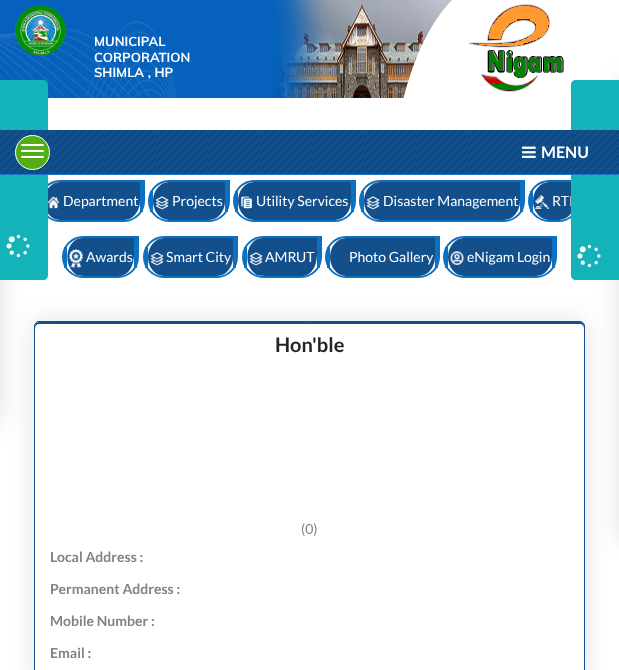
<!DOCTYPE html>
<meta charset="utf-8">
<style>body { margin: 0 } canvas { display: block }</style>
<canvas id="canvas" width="619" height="670"></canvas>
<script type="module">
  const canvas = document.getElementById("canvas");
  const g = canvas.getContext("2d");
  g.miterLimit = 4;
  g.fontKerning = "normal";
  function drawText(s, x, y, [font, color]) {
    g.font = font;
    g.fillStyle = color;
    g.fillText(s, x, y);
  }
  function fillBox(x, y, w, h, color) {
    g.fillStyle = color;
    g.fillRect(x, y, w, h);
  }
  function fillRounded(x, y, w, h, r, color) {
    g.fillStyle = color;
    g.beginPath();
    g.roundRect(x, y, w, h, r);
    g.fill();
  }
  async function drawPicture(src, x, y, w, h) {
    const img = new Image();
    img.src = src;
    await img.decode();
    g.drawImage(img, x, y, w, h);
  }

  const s1 = ["bold 13px Muli", "#FFFFFF"];
  const s2 = ["14px Lato", "#FFFFFF"];
  const s3 = ["bold 16px Lato", "#FFFFFF"];
  const s4 = ["bold 20px Lato", "#212529"];
  const s5 = ["14px Lato", "#828282"];
  const s6 = ["bold 14px Lato", "#828282"];

  fillBox(0, 0, 619, 670, "#FFFFFF");
  await drawPicture("pic2.png", 0, 0, 452, 98);
  await drawPicture("pic4.png", 15, 5, 51, 51);
  g.fillStyle = "rgba(0, 0, 0, 0.12)";
  g.filter = "blur(12px)";
  g.beginPath();
  g.roundRect(34, 321, 551, 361, 5);
  g.fill();
  g.filter = "none";
  fillRounded(34, 321, 551, 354, 5, "#FFFFFF");
  g.fillStyle = "#124F8B";
  g.beginPath();
  g.moveTo(39, 324);
  g.lineTo(580, 324);
  g.bezierCurveTo(582, 324, 584, 326, 584, 328);
  g.lineTo(584, 326);
  g.bezierCurveTo(584, 324, 582, 322, 580, 322);
  g.lineTo(39, 322);
  g.bezierCurveTo(37, 322, 35, 324, 35, 326);
  g.lineTo(35, 328);
  g.bezierCurveTo(35, 326, 37, 324, 39, 324);
  g.closePath();
  g.fill();
  g.beginPath();
  g.roundRect(34.5, 321.5, 550, 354, 4.5);
  g.strokeStyle = "#124F8B";
  g.stroke();
  g.fillStyle = "rgba(0, 0, 0, 0.12)";
  g.filter = "blur(12px)";
  g.beginPath();
  g.rect(-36, 80, 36, 343);
  g.fill();
  g.filter = "none";
  g.fillStyle = "#124F8B";
  g.beginPath();
  g.moveTo(60, 182);
  g.lineTo(140, 182);
  g.lineTo(140, 201);
  g.bezierCurveTo(140, 211, 133, 220, 124, 220);
  g.lineTo(60, 220);
  g.bezierCurveTo(51, 220, 44, 211, 44, 201);
  g.bezierCurveTo(44, 191, 51, 182, 60, 182);
  g.closePath();
  g.fill();
  g.beginPath();
  g.roundRect(40, 181, 104, 40, [20, 0, 20, 20]);
  g.strokeStyle = "#0C71C3";
  g.lineWidth = 2;
  g.stroke();
  g.fillStyle = "#14B3B9";
  g.beginPath();
  g.moveTo(0, 280);
  g.lineTo(0, 80);
  g.lineTo(43, 80);
  g.bezierCurveTo(46, 80, 48, 82, 48, 85);
  g.lineTo(48, 275);
  g.bezierCurveTo(48, 278, 46, 280, 43, 280);
  g.closePath();
  g.fill();
  await drawPicture("pic1.png", 6, 234, 24, 24);
  await drawPicture("pic3.png", 403, 0, 49, 98);
  drawText("MUNICIPAL", 94, 46, s1);
  drawText("CORPORATION", 94, 62, s1);
  drawText("SHIMLA , HP", 94, 77, s1);
  await drawPicture("pic5.png", 469, 4, 95, 88);
  g.fillStyle = "rgba(0, 0, 0, 0.12)";
  g.filter = "blur(12px)";
  g.beginPath();
  g.rect(619, 80, 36, 460);
  g.fill();
  g.filter = "none";
  g.fillStyle = "#124F8B";
  g.beginPath();
  g.moveTo(549, 182);
  g.lineTo(575, 182);
  g.lineTo(575, 201);
  g.bezierCurveTo(575, 211, 568, 220, 559, 220);
  g.lineTo(549, 220);
  g.bezierCurveTo(540, 220, 533, 211, 533, 201);
  g.bezierCurveTo(533, 191, 540, 182, 549, 182);
  g.closePath();
  g.fill();
  g.beginPath();
  g.roundRect(529, 181, 50, 40, [20, 0, 20, 20]);
  g.stroke();
  drawText("RTI", 552, 206, s2);
  g.fillStyle = "#14B3B9";
  g.beginPath();
  g.moveTo(571, 275);
  g.lineTo(571, 85);
  g.bezierCurveTo(571, 82, 573, 80, 576, 80);
  g.lineTo(619, 80);
  g.lineTo(619, 280);
  g.lineTo(576, 280);
  g.bezierCurveTo(573, 280, 571, 278, 571, 275);
  g.closePath();
  g.fill();
  await drawPicture("pic6.png", 0, 130, 619, 44);
  fillBox(0, 174, 619, 1, "#1A75CE");
  g.fillStyle = "#52AD16";
  g.beginPath();
  g.arc(32.5, 152.5, 17, 0, Math.PI * 2);
  g.fill();
  g.strokeStyle = "#FFFFFF";
  g.lineWidth = 1;
  g.stroke();
  fillRounded(21, 150, 23, 2, 1, "#FFFFFF");
  fillRounded(21, 144, 23, 2, 1, "#FFFFFF");
  fillRounded(21, 156, 23, 2, 1, "#FFFFFF");
  await drawPicture("pic7.png", 522, 146, 14, 12);
  drawText("MENU", 541, 158, s3);
  await drawPicture("pic1.png", 577, 244, 24, 24);
  fillBox(140, 180, 3, 32, "#0C71C3");
  await drawPicture("pic8.png", 48, 196, 12, 13);
  drawText("Department", 63, 206, s2);
  g.fillStyle = "#124F8B";
  g.beginPath();
  g.moveTo(169, 182);
  g.lineTo(225, 182);
  g.lineTo(225, 201);
  g.bezierCurveTo(225, 211, 218, 220, 209, 220);
  g.lineTo(169, 220);
  g.bezierCurveTo(160, 220, 153, 211, 153, 201);
  g.bezierCurveTo(153, 191, 160, 182, 169, 182);
  g.closePath();
  g.fill();
  g.beginPath();
  g.roundRect(149, 181, 80, 40, [20, 0, 20, 20]);
  g.strokeStyle = "#0C71C3";
  g.lineWidth = 2;
  g.stroke();
  fillBox(225, 180, 3, 32, "#0C71C3");
  fillBox(150, 191, 3, 21, "#0C71C3");
  await drawPicture("pic9.png", 155, 196, 14, 14);
  drawText("Projects", 172, 206, s2);
  g.fillStyle = "#124F8B";
  g.beginPath();
  g.moveTo(254, 182);
  g.lineTo(351, 182);
  g.lineTo(351, 201);
  g.bezierCurveTo(351, 211, 344, 220, 335, 220);
  g.lineTo(254, 220);
  g.bezierCurveTo(245, 220, 238, 211, 238, 201);
  g.bezierCurveTo(238, 191, 245, 182, 254, 182);
  g.closePath();
  g.fill();
  g.beginPath();
  g.roundRect(234, 181, 121, 40, [20, 0, 20, 20]);
  g.stroke();
  fillBox(351, 180, 3, 32, "#0C71C3");
  fillBox(235, 191, 3, 21, "#0C71C3");
  await drawPicture("pic10.png", 241, 196, 11, 13);
  drawText("Utility Services", 256, 206, s2);
  g.fillStyle = "#124F8B";
  g.beginPath();
  g.moveTo(380, 182);
  g.lineTo(520, 182);
  g.lineTo(520, 201);
  g.bezierCurveTo(520, 211, 513, 220, 504, 220);
  g.lineTo(380, 220);
  g.bezierCurveTo(371, 220, 364, 211, 364, 201);
  g.bezierCurveTo(364, 191, 371, 182, 380, 182);
  g.closePath();
  g.fill();
  g.beginPath();
  g.roundRect(360, 181, 164, 40, [20, 0, 20, 20]);
  g.stroke();
  fillBox(520, 180, 3, 32, "#0C71C3");
  fillBox(361, 191, 3, 21, "#0C71C3");
  await drawPicture("pic9.png", 366, 196, 14, 14);
  drawText("Disaster Management", 383, 206, s2);
  fillBox(530, 191, 3, 21, "#0C71C3");
  await drawPicture("pic11.png", 535, 195, 14, 14);
  g.fillStyle = "#124F8B";
  g.beginPath();
  g.moveTo(83, 238);
  g.lineTo(134, 238);
  g.bezierCurveTo(134, 250, 137, 272, 121, 276);
  g.lineTo(106, 276);
  g.bezierCurveTo(99, 276, 82, 277, 77, 275);
  g.bezierCurveTo(62, 267, 65, 238, 83, 238);
  g.closePath();
  g.fill();
  g.beginPath();
  g.roundRect(63, 237, 75, 40, [20, 0, 20, 20]);
  g.stroke();
  fillBox(134, 236, 3, 32, "#0C71C3");
  fillBox(64, 247, 3, 21, "#0C71C3");
  await drawPicture("pic12.png", 69, 249, 14, 19);
  drawText("Awards", 86, 262, s2);
  g.fillStyle = "#124F8B";
  g.beginPath();
  g.moveTo(164, 238);
  g.lineTo(233, 238);
  g.lineTo(233, 257);
  g.bezierCurveTo(233, 267, 226, 276, 217, 276);
  g.lineTo(164, 276);
  g.bezierCurveTo(155, 276, 148, 267, 148, 257);
  g.bezierCurveTo(148, 247, 155, 238, 164, 238);
  g.closePath();
  g.fill();
  g.beginPath();
  g.roundRect(144, 237, 93, 40, [20, 0, 20, 20]);
  g.stroke();
  fillBox(233, 236, 3, 32, "#0C71C3");
  fillBox(145, 247, 3, 21, "#0C71C3");
  await drawPicture("pic9.png", 150, 252, 14, 14);
  drawText("Smart City", 166, 262, s2);
  g.fillStyle = "#124F8B";
  g.beginPath();
  g.moveTo(263, 238);
  g.lineTo(317, 238);
  g.bezierCurveTo(317, 250, 320, 272, 304, 276);
  g.lineTo(288, 276);
  g.bezierCurveTo(281, 276, 263, 277, 257, 275);
  g.bezierCurveTo(242, 267, 245, 238, 263, 238);
  g.closePath();
  g.fill();
  g.beginPath();
  g.roundRect(243, 237, 78, 40, [20, 0, 20, 20]);
  g.stroke();
  fillBox(317, 236, 3, 32, "#0C71C3");
  fillBox(244, 247, 3, 21, "#0C71C3");
  await drawPicture("pic13.png", 249, 252, 14, 14);
  drawText("AMRUT", 265, 262, s2);
  g.fillStyle = "#124F8B";
  g.beginPath();
  g.moveTo(346, 238);
  g.lineTo(435, 238);
  g.lineTo(435, 257);
  g.bezierCurveTo(435, 267, 428, 276, 419, 276);
  g.lineTo(346, 276);
  g.bezierCurveTo(337, 276, 330, 267, 330, 257);
  g.bezierCurveTo(330, 247, 337, 238, 346, 238);
  g.closePath();
  g.fill();
  g.beginPath();
  g.roundRect(326, 237, 113, 40, [20, 0, 20, 20]);
  g.stroke();
  fillBox(435, 236, 3, 32, "#0C71C3");
  fillBox(327, 247, 3, 21, "#0C71C3");
  drawText("Photo Gallery", 349, 262, s2);
  g.fillStyle = "#124F8B";
  g.beginPath();
  g.moveTo(464, 238);
  g.lineTo(552, 238);
  g.lineTo(552, 257);
  g.bezierCurveTo(552, 267, 545, 276, 536, 276);
  g.lineTo(464, 276);
  g.bezierCurveTo(455, 276, 448, 267, 448, 257);
  g.bezierCurveTo(448, 247, 455, 238, 464, 238);
  g.closePath();
  g.fill();
  g.beginPath();
  g.roundRect(444, 237, 112, 40, [20, 0, 20, 20]);
  g.stroke();
  fillBox(552, 236, 3, 32, "#0C71C3");
  fillBox(445, 247, 3, 21, "#0C71C3");
  await drawPicture("pic14.png", 450, 251, 14, 14);
  drawText("eNigam Login", 467, 262, s2);
  drawText("Hon'ble", 275, 352, s4);
  drawText("(0)", 301, 534, s5);
  drawText("Local Address :", 50, 562, s6);
  drawText("Permanent Address :", 50, 594, s6);
  drawText("Mobile Number :", 50, 626, s6);
  drawText("Email :", 50, 658, s6);
</script>
